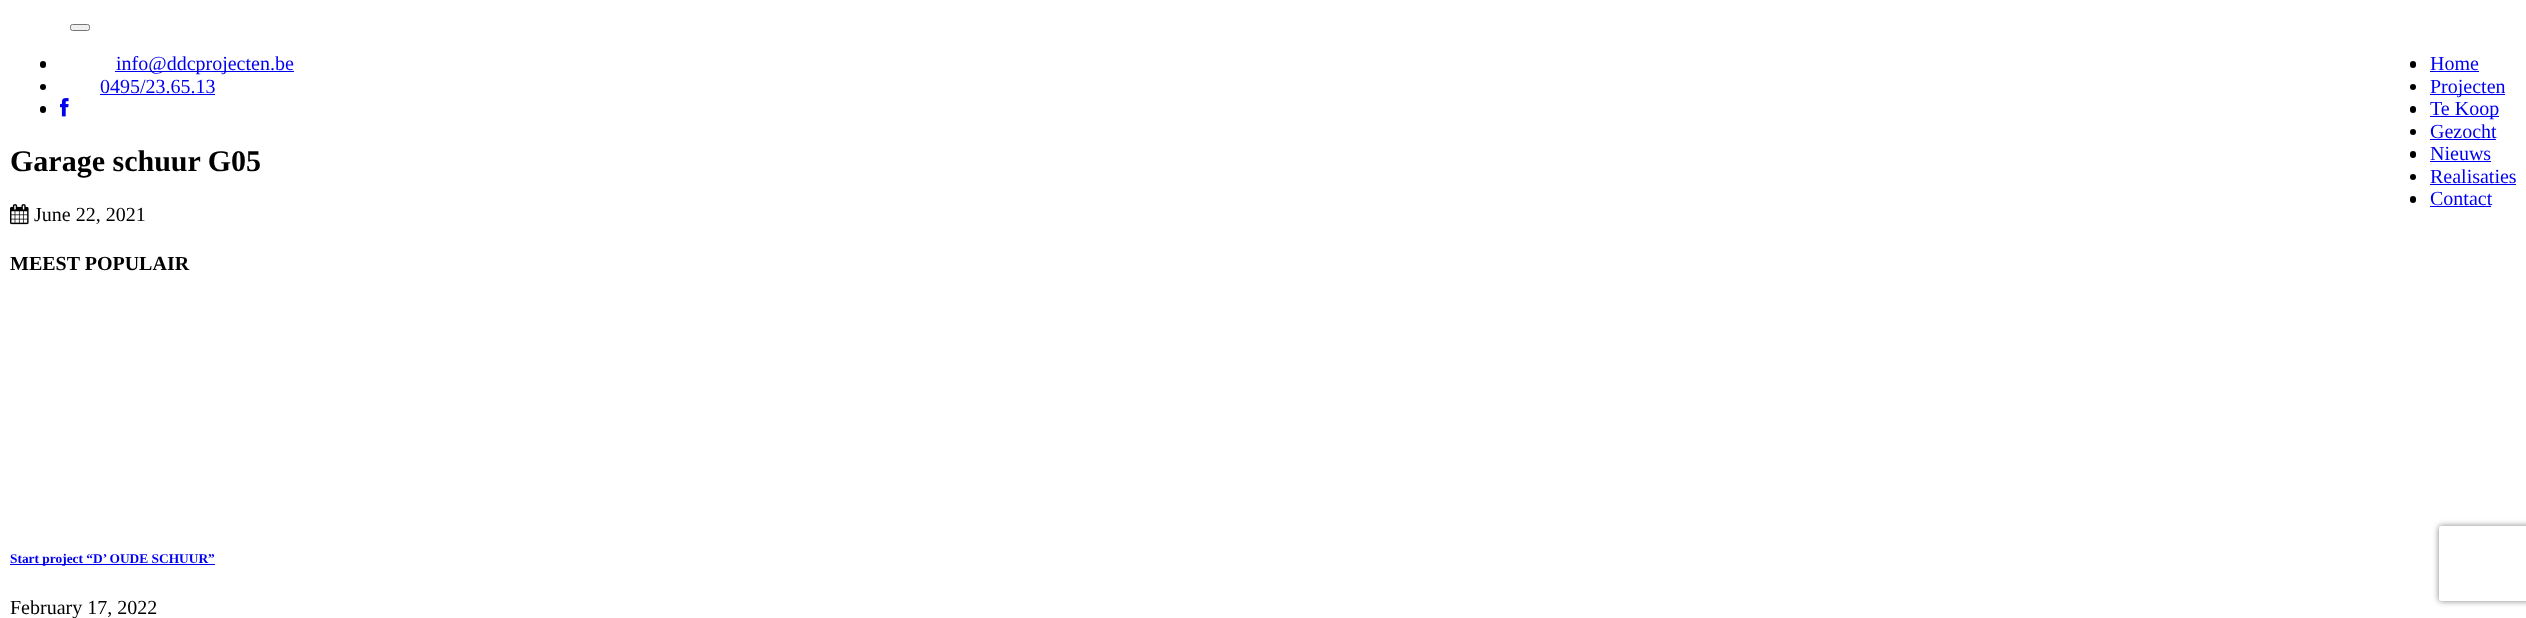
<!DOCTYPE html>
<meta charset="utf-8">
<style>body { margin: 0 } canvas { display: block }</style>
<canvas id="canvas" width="2526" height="618"></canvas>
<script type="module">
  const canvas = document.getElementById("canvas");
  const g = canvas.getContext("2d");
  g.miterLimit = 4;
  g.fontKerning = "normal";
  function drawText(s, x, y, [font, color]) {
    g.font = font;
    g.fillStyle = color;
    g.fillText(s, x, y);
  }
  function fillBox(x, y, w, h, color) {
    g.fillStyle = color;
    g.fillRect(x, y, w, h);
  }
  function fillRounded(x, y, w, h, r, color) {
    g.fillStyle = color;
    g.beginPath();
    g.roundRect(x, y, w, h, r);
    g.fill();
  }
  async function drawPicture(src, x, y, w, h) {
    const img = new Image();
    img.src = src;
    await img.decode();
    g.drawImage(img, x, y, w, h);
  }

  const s1 = ["20px Liberation Serif", "#0000EE"];
  const s2 = ["bold 30px Liberation Serif", "#000000"];
  const s3 = ["20px Liberation Serif", "#000000"];
  const s4 = ["bold 20px Liberation Serif", "#000000"];
  const s5 = ["bold 13.4px Liberation Serif", "#0000EE"];

  fillBox(0, 0, 2526, 618, "#FFFFFF");
  g.fillStyle = "#EFEFEF";
  g.beginPath();
  g.roundRect(70.5, 24.5, 19, 6, 2);
  g.fill();
  g.strokeStyle = "#767676";
  g.stroke();
  fillRounded(40, 61, 6, 7, 3, "#000000");
  fillBox(115, 71, 179, 1, "#0000EE");
  drawText("info@ddcprojecten.be", 116, 70, s1);
  g.fillStyle = "#000000";
  g.beginPath();
  g.arc(43, 87, 3, 0, Math.PI * 2);
  g.fill();
  drawText("0495/23.65.13", 100, 93, s1);
  fillBox(100, 94, 115, 1, "#0000EE");
  fillRounded(40, 106, 6, 7, 3, "#000000");
  await drawPicture("pic1.png", 60, 98, 9, 19);
  fillRounded(2410, 61, 6, 7, 3, "#000000");
  drawText("Home", 2430, 70, s1);
  fillBox(2430, 71, 49, 1, "#0000EE");
  g.fillStyle = "#000000";
  g.beginPath();
  g.arc(2413, 87, 3, 0, Math.PI * 2);
  g.fill();
  fillBox(2430, 94, 75, 1, "#0000EE");
  drawText("Projecten", 2430, 93, s1);
  fillRounded(2410, 106, 6, 7, 3, "#000000");
  fillBox(2430, 116, 69, 1, "#0000EE");
  drawText("Te Koop", 2430, 115, s1);
  g.fillStyle = "#000000";
  g.beginPath();
  g.arc(2413, 132, 3, 0, Math.PI * 2);
  g.fill();
  drawText("Gezocht", 2430, 138, s1);
  fillBox(2430, 139, 66, 1, "#0000EE");
  fillRounded(2410, 151, 6, 7, 3, "#000000");
  drawText("Nieuws", 2430, 160, s1);
  fillBox(2430, 161, 61, 1, "#0000EE");
  g.fillStyle = "#000000";
  g.beginPath();
  g.arc(2413, 177, 3, 0, Math.PI * 2);
  g.fill();
  drawText("Realisaties", 2430, 183, s1);
  fillBox(2430, 184, 86, 1, "#0000EE");
  fillRounded(2410, 196, 6, 7, 3, "#000000");
  drawText("Contact", 2430, 205, s1);
  fillBox(2430, 206, 61, 1, "#0000EE");
  drawText("Garage schuur G05", 10, 171, s2);
  await drawPicture("pic2.png", 10, 204, 19, 21);
  drawText("June 22, 2021", 34, 221, s3);
  drawText("MEEST POPULAIR", 10, 270, s4);
  fillBox(10, 564, 205, 1, "#0000EE");
  drawText("Start project “D’ OUDE SCHUUR”", 10, 563, s5);
  drawText("February 17, 2022", 10, 614, s3);
  g.save();
  g.beginPath();
  g.moveTo(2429, 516);
  g.lineTo(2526, 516);
  g.lineTo(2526, 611);
  g.lineTo(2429, 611);
  g.closePath();
  g.moveTo(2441.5, 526);
  g.lineTo(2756.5, 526);
  g.bezierCurveTo(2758, 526, 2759, 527, 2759, 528.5);
  g.lineTo(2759, 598.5);
  g.bezierCurveTo(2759, 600, 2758, 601, 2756.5, 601);
  g.lineTo(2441.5, 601);
  g.bezierCurveTo(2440, 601, 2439, 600, 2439, 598.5);
  g.lineTo(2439, 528.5);
  g.bezierCurveTo(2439, 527, 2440, 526, 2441.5, 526);
  g.closePath();
  g.clip("evenodd");
  g.fillStyle = "#808080";
  g.filter = "blur(3px)";
  g.beginPath();
  g.roundRect(2439, 526, 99, 75, 2.5);
  g.fill();
  g.filter = "none";
  g.restore();
</script>
